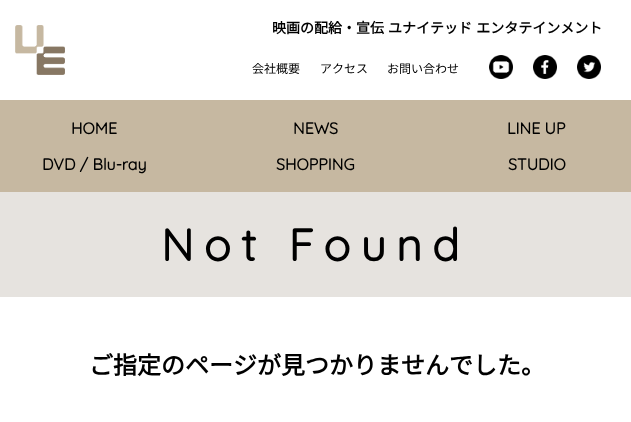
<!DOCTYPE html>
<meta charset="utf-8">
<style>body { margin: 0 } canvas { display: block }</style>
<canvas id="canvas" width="631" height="422"></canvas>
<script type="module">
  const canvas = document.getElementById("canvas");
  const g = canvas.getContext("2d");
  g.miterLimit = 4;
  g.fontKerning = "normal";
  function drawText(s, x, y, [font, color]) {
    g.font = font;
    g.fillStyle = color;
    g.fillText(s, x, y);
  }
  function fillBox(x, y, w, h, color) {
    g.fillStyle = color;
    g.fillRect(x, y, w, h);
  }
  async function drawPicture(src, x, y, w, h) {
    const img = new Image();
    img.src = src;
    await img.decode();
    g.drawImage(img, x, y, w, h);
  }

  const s1 = ["bold 14px Noto Sans JP", "#000000"];
  const s2 = ["100 12px Noto Sans JP", "#000000"];
  const s3 = ["bold 16px Quicksand", "#000000"];
  const s4 = ["bold 45px Quicksand", "#000000"];
  const s5 = ["bold 24px Noto Sans JP", "#000000"];

  fillBox(0, 0, 631, 422, "#FFFFFF");
  await drawPicture("pic1.png", 15, 25, 50, 50);
  drawText("映画の配給・宣伝", 272, 33, s1);
  g.wordSpacing = "1px";
  drawText("ユナイテッド エンタテインメント", 388, 33, s1);
  g.wordSpacing = "0px";
  drawText("会社概要", 252, 73, s2);
  drawText("アクセス", 320, 73, s2);
  drawText("お問い合わせ", 387, 73, s2);
  await drawPicture("pic2.png", 489, 55, 24, 24);
  await drawPicture("pic3.png", 533, 55, 24, 24);
  await drawPicture("pic4.png", 577, 55, 24, 24);
  fillBox(0, 100, 631, 92, "#C6B8A1");
  drawText("HOME", 71, 134, s3);
  drawText("NEWS", 293, 134, s3);
  drawText("LINE UP", 507, 134, s3);
  drawText("DVD / Blu-ray", 42, 170, s3);
  drawText("SHOPPING", 276, 170, s3);
  drawText("STUDIO", 508, 170, s3);
  fillBox(0, 192, 631, 105, "#E6E3DF");
  g.letterSpacing = "10px";
  drawText("Not Found", 161, 261, s4);
  g.letterSpacing = "0px";
  drawText("ご指定のページが見つかりませんでした。", 89, 374, s5);
</script>
